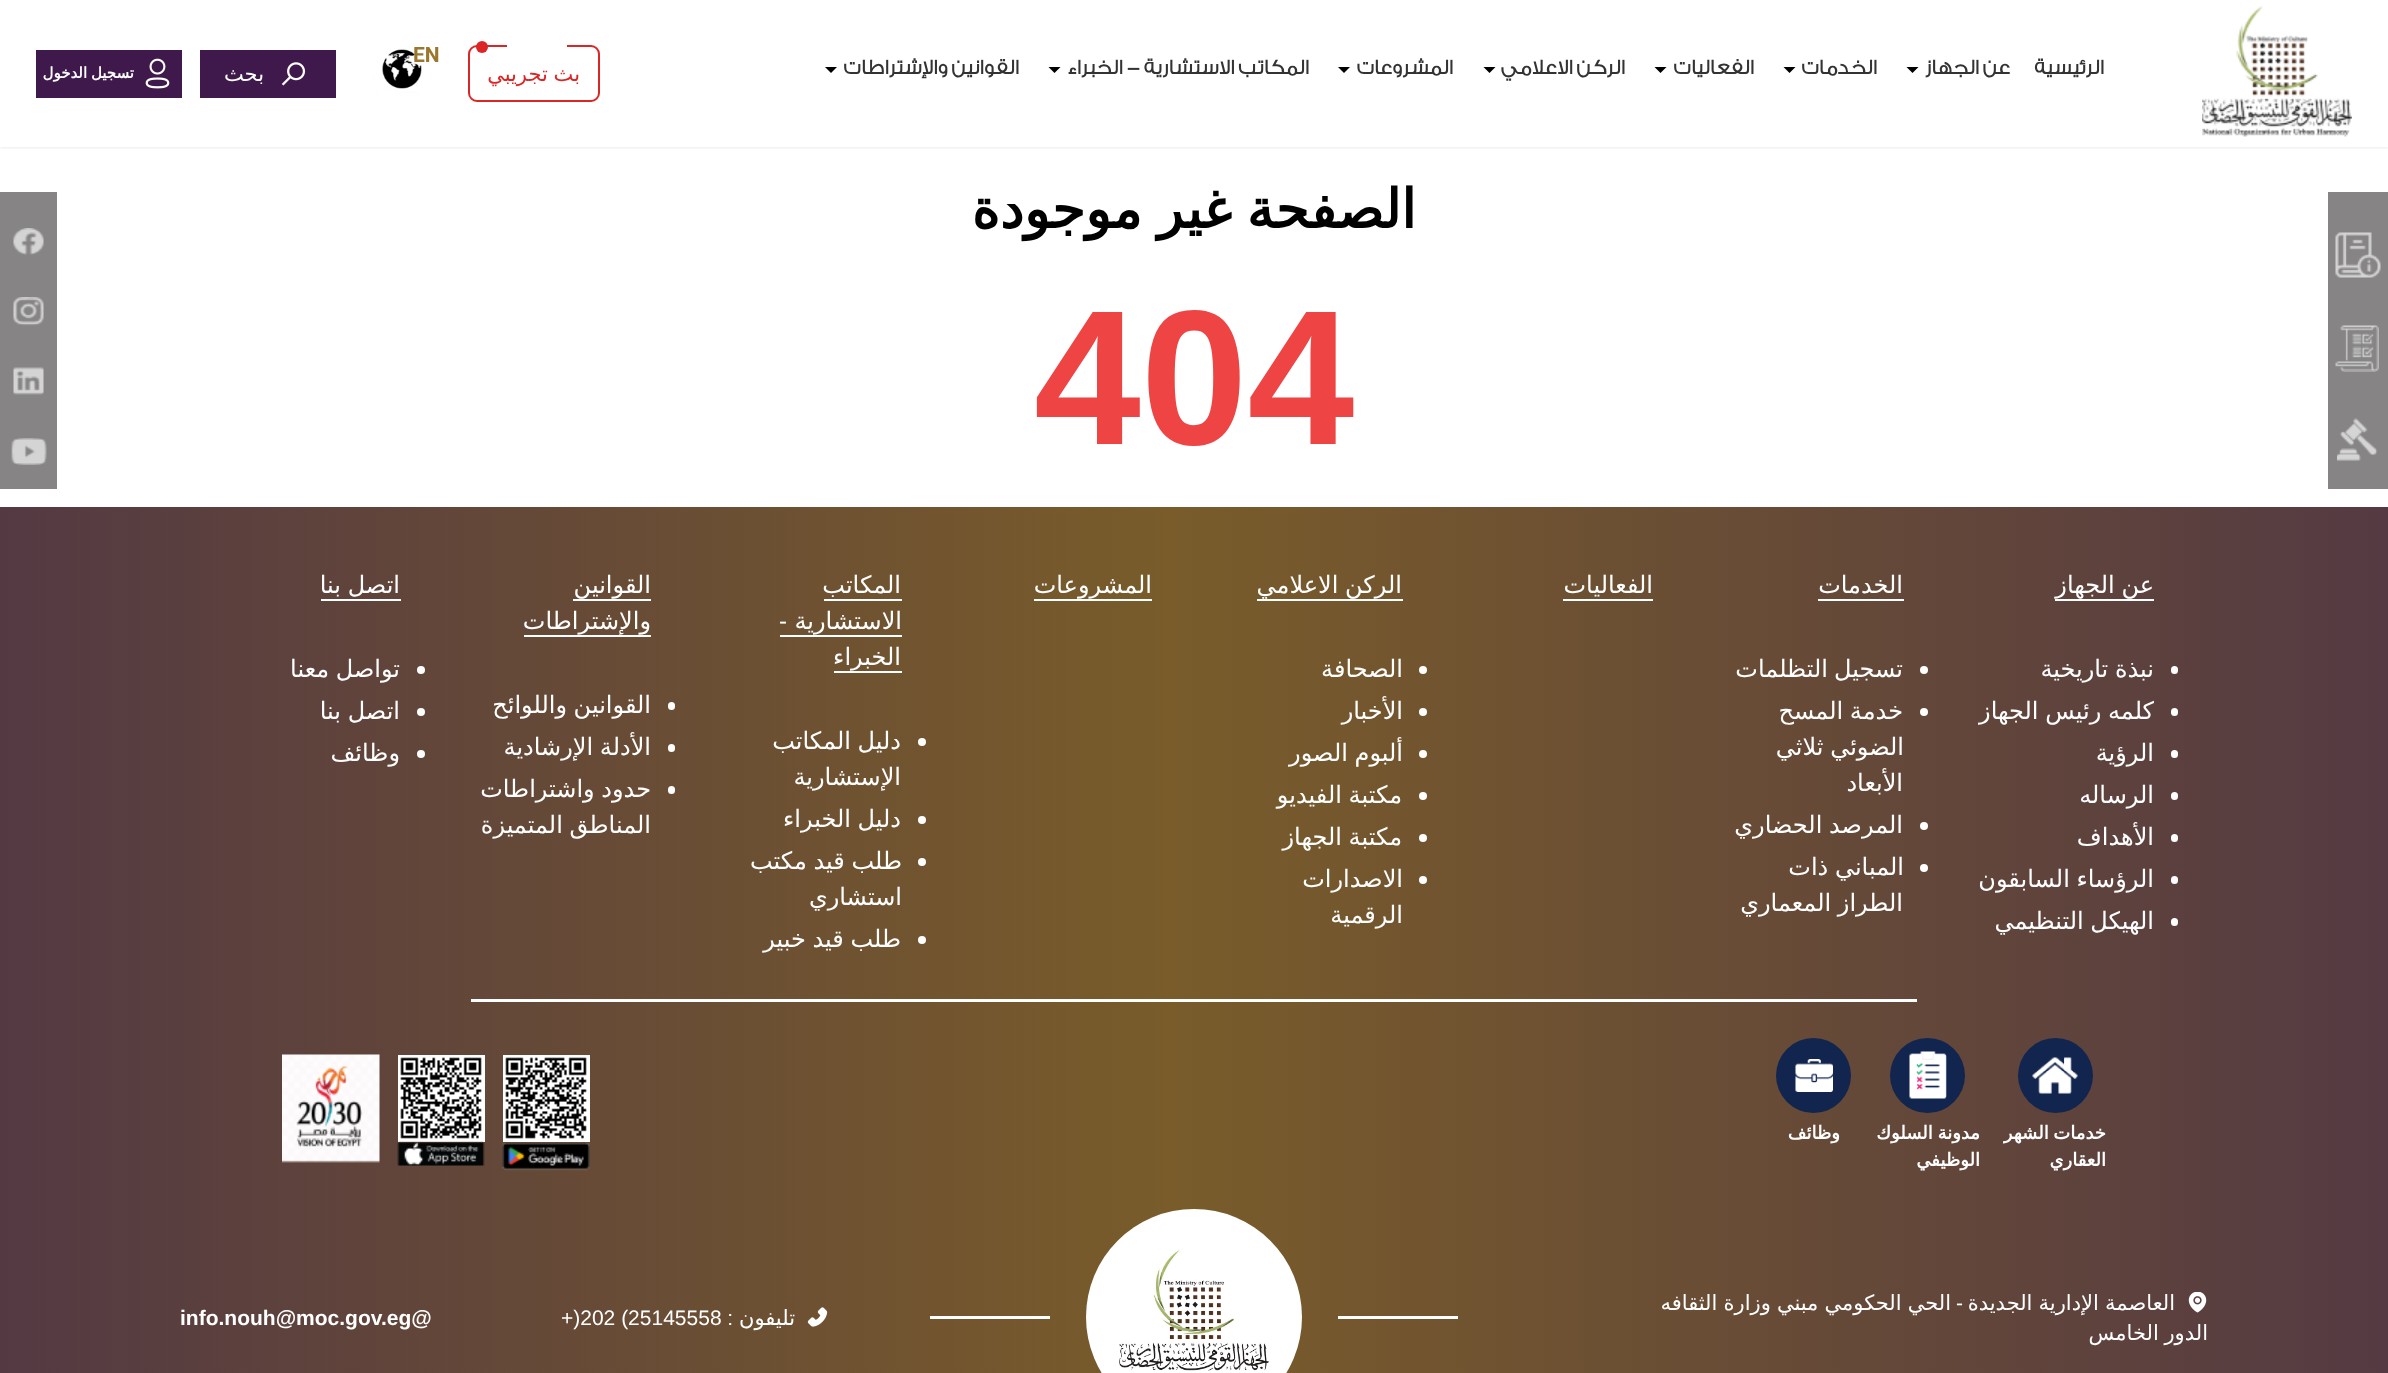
<!DOCTYPE html>
<meta charset="utf-8">
<style>body { margin: 0 } canvas { display: block }</style>
<canvas id="canvas" width="2388" height="1373"></canvas>
<script type="module">
  const canvas = document.getElementById("canvas");
  const g = canvas.getContext("2d");
  g.miterLimit = 4;
  g.fontKerning = "normal";
  function drawText(s, x, y, [font, color]) {
    g.font = font;
    g.fillStyle = color;
    g.fillText(s, x, y);
  }
  function fillBox(x, y, w, h, color) {
    g.fillStyle = color;
    g.fillRect(x, y, w, h);
  }
  function fillRounded(x, y, w, h, r, color) {
    g.fillStyle = color;
    g.beginPath();
    g.roundRect(x, y, w, h, r);
    g.fill();
  }
  async function drawPicture(src, x, y, w, h) {
    const img = new Image();
    img.src = src;
    await img.decode();
    g.drawImage(img, x, y, w, h);
  }
  let gradient;

  const s1 = ["bold 21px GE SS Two", "#333333"];
  const s2 = ["bold 21px Roboto", "#9B762C"];
  const s3 = ["21px DejaVu Sans", "#DC2626"];
  const s4 = ["21px DejaVu Sans", "#FFFFFF"];
  const s5 = ["bold 15px DejaVu Sans", "#FFFFFF"];
  const s6 = ["bold 54px DejaVu Sans", "#000000"];
  const s7 = ["bold 192px Liberation Sans", "#EF4444"];
  const s8 = ["24px DejaVu Sans", "#FFFFFF"];
  const s9 = ["24px Liberation Sans", "#FFFFFF"];
  const s10 = ["bold 18px DejaVu Sans", "#FFFFFF"];
  const s11 = ["21px Liberation Sans", "#FFFFFF"];
  const s12 = ["bold 21px Liberation Sans", "#FFFFFF"];

  fillBox(0, 0, 2388, 1373, "#FFFFFF");
  g.save();
  g.beginPath();
  g.rect(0, 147, 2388, 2);
  g.clip();
  g.fillStyle = "rgba(0, 0, 0, 0.05)";
  g.filter = "blur(1.5px)";
  g.beginPath();
  g.rect(0, 2, 2388, 147);
  g.fill();
  g.filter = "none";
  g.restore();
  await drawPicture("pic1.png", 2202, 6, 150, 131);
  g.direction = "rtl";
  drawText("الرئيسية", 2104, 74, s1);
  drawText("عن الجهاز", 2010, 74, s1);
  g.fillStyle = "#000000";
  g.beginPath();
  g.moveTo(1912.5, 73);
  g.lineTo(1906.5, 67);
  g.lineTo(1918.5, 67);
  g.closePath();
  g.fill();
  drawText("الخدمات", 1877, 74, s1);
  g.fillStyle = "#000000";
  g.beginPath();
  g.moveTo(1789.5, 73);
  g.lineTo(1783.5, 67);
  g.lineTo(1795.5, 67);
  g.closePath();
  g.fill();
  drawText("الفعاليات", 1754, 74, s1);
  g.fillStyle = "#000000";
  g.beginPath();
  g.moveTo(1660.5, 73);
  g.lineTo(1654.5, 67);
  g.lineTo(1666.5, 67);
  g.closePath();
  g.fill();
  drawText("الركن الاعلامي", 1625, 74, s1);
  g.fillStyle = "#000000";
  g.beginPath();
  g.moveTo(1489.5, 73);
  g.lineTo(1483.5, 67);
  g.lineTo(1495.5, 67);
  g.closePath();
  g.fill();
  drawText("المشروعات", 1453, 74, s1);
  g.fillStyle = "#000000";
  g.beginPath();
  g.moveTo(1344, 73);
  g.lineTo(1338, 67);
  g.lineTo(1350, 67);
  g.closePath();
  g.fill();
  drawText("المكاتب الاستشارية - الخبراء", 1309, 74, s1);
  g.fillStyle = "#000000";
  g.beginPath();
  g.moveTo(1054.5, 73);
  g.lineTo(1048.5, 67);
  g.lineTo(1060.5, 67);
  g.closePath();
  g.fill();
  drawText("القوانين والإشتراطات", 1019, 74, s1);
  g.fillStyle = "#000000";
  g.beginPath();
  g.moveTo(831, 73);
  g.lineTo(825, 67);
  g.lineTo(837, 67);
  g.closePath();
  g.fill();
  g.fillStyle = "#FAFAFA";
  g.beginPath();
  g.moveTo(372, 70);
  g.bezierCurveTo(372, 76, 374, 81, 377, 85);
  g.bezierCurveTo(389, 100, 415, 100, 427, 85);
  g.bezierCurveTo(430, 81, 432, 76, 432, 70);
  g.bezierCurveTo(430, 100, 374, 100, 372, 70);
  g.closePath();
  g.fill();
  await drawPicture("pic2.png", 375, 49, 55, 47);
  g.direction = "ltr";
  drawText("EN", 413, 62, s2);
  g.beginPath();
  g.roundRect(469, 46, 130, 55, 8);
  g.strokeStyle = "#DC2626";
  g.lineWidth = 2;
  g.stroke();
  fillBox(507, 45, 60, 2, "#FFFFFF");
  g.fillStyle = "#DC2626";
  g.beginPath();
  g.arc(482, 47, 6, 0, Math.PI * 2);
  g.fill();
  g.wordSpacing = "-1px";
  g.direction = "rtl";
  drawText("بث تجريبي", 580, 81, s3);
  fillBox(200, 50, 136, 48, "#3F194B");
  await drawPicture("pic3.png", 281, 62, 25, 24);
  g.wordSpacing = "0px";
  drawText("بحث", 264, 81, s4);
  fillBox(36, 50, 146, 48, "#3F194B");
  await drawPicture("pic4.png", 145, 58, 25, 31);
  g.wordSpacing = "-1px";
  drawText("تسجيل الدخول", 134, 78, s5);
  g.wordSpacing = "-2px";
  drawText("الصفحة غير موجودة", 1416, 228, s6);
  g.wordSpacing = "0px";
  g.direction = "ltr";
  drawText("404", 1034, 444, s7);
  fillBox(2328, 192, 60, 297, "#868484");
  await drawPicture("pic5.png", 2335, 232, 46, 46);
  await drawPicture("pic6.png", 2335, 325, 44, 47);
  await drawPicture("pic7.png", 2337, 418, 41, 43);
  fillBox(0, 192, 57, 297, "#868484");
  await drawPicture("pic8.png", 13, 228, 31, 27);
  await drawPicture("pic9.png", 13, 297, 31, 29);
  await drawPicture("pic10.png", 13, 367, 31, 28);
  await drawPicture("pic11.png", 11, 438, 36, 27);
  gradient = g.createLinearGradient(2388, 1089, 0, 1089);
  gradient.addColorStop(0, "#553A43");
  gradient.addColorStop(0.51, "#795C2A");
  gradient.addColorStop(1, "#543943");
  g.fillStyle = gradient;
  g.fillRect(0, 507, 2388, 866);
  g.wordSpacing = "-1px";
  g.direction = "rtl";
  drawText("عن الجهاز", 2154, 593, s8);
  fillBox(2055, 599, 99, 2, "#FFFFFF");
  fillRounded(2171, 666, 7, 8, 3.5, "#FFFFFF");
  drawText("نبذة تاريخية", 2154, 677, s8);
  fillRounded(2171, 708, 7, 8, 3.5, "#FFFFFF");
  drawText("كلمه رئيس الجهاز", 2154, 719, s8);
  fillRounded(2171, 750, 7, 8, 3.5, "#FFFFFF");
  g.wordSpacing = "0px";
  drawText("الرؤية", 2154, 761, s8);
  fillRounded(2171, 792, 7, 8, 3.5, "#FFFFFF");
  drawText("الرساله", 2154, 803, s8);
  fillRounded(2171, 834, 7, 8, 3.5, "#FFFFFF");
  drawText("الأهداف", 2154, 845, s8);
  fillRounded(2171, 876, 7, 8, 3.5, "#FFFFFF");
  g.wordSpacing = "-1px";
  drawText("الرؤساء السابقون", 2154, 887, s8);
  fillRounded(2171, 918, 7, 8, 3.5, "#FFFFFF");
  drawText("الهيكل التنظيمي", 2154, 929, s8);
  g.wordSpacing = "0px";
  drawText("الخدمات", 1903, 593, s8);
  fillBox(1818, 599, 86, 2, "#FFFFFF");
  g.beginPath();
  g.arc(1924, 670, 4, 0, Math.PI * 2);
  g.fill();
  drawText("تسجيل", 1903, 677, s8);
  drawText("التظلمات", 1828, 677, s8);
  g.beginPath();
  g.arc(1924, 712, 4, 0, Math.PI * 2);
  g.fill();
  g.wordSpacing = "-1px";
  drawText("خدمة المسح", 1903, 719, s8);
  drawText("الضوئي ثلاثي", 1904, 755, s8);
  g.wordSpacing = "0px";
  drawText("الأبعاد", 1903, 791, s8);
  g.beginPath();
  g.arc(1924, 826, 4, 0, Math.PI * 2);
  g.fill();
  g.wordSpacing = "-1px";
  drawText("المرصد الحضاري", 1903, 833, s8);
  g.beginPath();
  g.arc(1924, 868, 4, 0, Math.PI * 2);
  g.fill();
  drawText("المباني ذات", 1904, 875, s8);
  drawText("الطراز المعماري", 1903, 911, s8);
  g.wordSpacing = "0px";
  drawText("الفعاليات", 1653, 593, s8);
  fillBox(1563, 599, 90, 2, "#FFFFFF");
  g.wordSpacing = "-1px";
  drawText("الركن الاعلامي", 1402, 593, s8);
  fillBox(1257, 599, 146, 2, "#FFFFFF");
  g.beginPath();
  g.arc(1423, 670, 4, 0, Math.PI * 2);
  g.fill();
  g.wordSpacing = "0px";
  drawText("الصحافة", 1403, 677, s8);
  g.beginPath();
  g.arc(1423, 712, 4, 0, Math.PI * 2);
  g.fill();
  drawText("الأخبار", 1403, 719, s8);
  g.beginPath();
  g.arc(1423, 754, 4, 0, Math.PI * 2);
  g.fill();
  g.wordSpacing = "-1px";
  drawText("ألبوم الصور", 1403, 761, s8);
  g.beginPath();
  g.arc(1423, 796, 4, 0, Math.PI * 2);
  g.fill();
  drawText("مكتبة الفيديو", 1402, 803, s8);
  g.beginPath();
  g.arc(1423, 838, 4, 0, Math.PI * 2);
  g.fill();
  drawText("مكتبة الجهاز", 1402, 845, s8);
  g.beginPath();
  g.arc(1423, 880, 4, 0, Math.PI * 2);
  g.fill();
  g.wordSpacing = "0px";
  drawText("الاصدارات", 1403, 887, s8);
  drawText("الرقمية", 1403, 923, s8);
  drawText("المشروعات", 1152, 593, s8);
  fillBox(1034, 599, 118, 2, "#FFFFFF");
  drawText("المكاتب", 901, 593, s8);
  fillBox(824, 599, 78, 2, "#FFFFFF");
  drawText("الاستشارية", 902, 629, s8);
  drawText("-", 787, 629, s9);
  fillBox(780, 635, 122, 2, "#FFFFFF");
  drawText("الخبراء", 901, 665, s8);
  fillBox(834, 671, 68, 2, "#FFFFFF");
  g.beginPath();
  g.arc(922, 742, 4, 0, Math.PI * 2);
  g.fill();
  g.wordSpacing = "-1px";
  drawText("دليل المكاتب", 901, 749, s8);
  g.wordSpacing = "0px";
  drawText("الإستشارية", 901, 785, s8);
  g.beginPath();
  g.arc(922, 820, 4, 0, Math.PI * 2);
  g.fill();
  g.wordSpacing = "-1px";
  drawText("دليل الخبراء", 901, 827, s8);
  g.beginPath();
  g.arc(922, 862, 4, 0, Math.PI * 2);
  g.fill();
  drawText("طلب قيد مكتب", 902, 869, s8);
  g.wordSpacing = "0px";
  drawText("استشاري", 902, 905, s8);
  g.beginPath();
  g.arc(922, 940, 4, 0, Math.PI * 2);
  g.fill();
  g.wordSpacing = "-1px";
  drawText("طلب قيد خبير", 901, 947, s8);
  g.wordSpacing = "0px";
  drawText("القوانين", 651, 593, s8);
  fillBox(573, 599, 78, 2, "#FFFFFF");
  drawText("والإشتراطات", 651, 629, s8);
  fillBox(524, 635, 127, 2, "#FFFFFF");
  fillRounded(668, 702, 7, 8, 3.5, "#FFFFFF");
  g.wordSpacing = "-1px";
  drawText("القوانين واللوائح", 651, 713, s8);
  fillRounded(668, 744, 7, 8, 3.5, "#FFFFFF");
  drawText("الأدلة الإرشادية", 651, 755, s8);
  fillRounded(668, 786, 7, 8, 3.5, "#FFFFFF");
  drawText("حدود واشتراطات", 651, 797, s8);
  drawText("المناطق المتميزة", 651, 833, s8);
  drawText("اتصل بنا", 400, 593, s8);
  fillBox(321, 599, 80, 2, "#FFFFFF");
  g.beginPath();
  g.arc(421, 670, 4, 0, Math.PI * 2);
  g.fill();
  drawText("تواصل معنا", 400, 677, s8);
  g.beginPath();
  g.arc(421, 712, 4, 0, Math.PI * 2);
  g.fill();
  drawText("اتصل بنا", 400, 719, s8);
  g.beginPath();
  g.arc(421, 754, 4, 0, Math.PI * 2);
  g.fill();
  g.wordSpacing = "0px";
  drawText("وظائف", 400, 761, s8);
  fillBox(471, 999, 1446, 3, "#FFFFFF");
  g.fillStyle = "#12254F";
  g.beginPath();
  g.arc(2055.5, 1075.5, 37.5, 0, Math.PI * 2);
  g.fill();
  await drawPicture("pic12.png", 2032, 1057, 46, 37);
  g.wordSpacing = "-1px";
  drawText("خدمات الشهر", 2106, 1139, s10);
  g.wordSpacing = "0px";
  drawText("العقاري", 2106, 1166, s10);
  g.fillStyle = "#12254F";
  g.beginPath();
  g.arc(1927.5, 1075.5, 37.5, 0, Math.PI * 2);
  g.fill();
  await drawPicture("pic13.png", 1909, 1051, 38, 48);
  g.wordSpacing = "-1px";
  drawText("مدونة السلوك", 1980, 1139, s10);
  g.wordSpacing = "0px";
  drawText("الوظيفي", 1980, 1166, s10);
  g.fillStyle = "#12254F";
  g.beginPath();
  g.arc(1813.5, 1075.5, 37.5, 0, Math.PI * 2);
  g.fill();
  await drawPicture("pic14.png", 1795, 1059, 38, 33);
  drawText("وظائف", 1840, 1139, s10);
  fillBox(503, 1055, 87, 87, "#FFFFFF");
  await drawPicture("pic15.png", 505, 1057, 82, 82);
  await drawPicture("pic16.png", 502, 1142, 88, 29);
  fillBox(398, 1055, 87, 87, "#FFFFFF");
  await drawPicture("pic17.png", 400, 1057, 82, 82);
  await drawPicture("pic18.png", 397, 1141, 88, 25);
  await drawPicture("pic19.png", 282, 1054, 98, 109);
  await drawPicture("pic20.png", 2188, 1292, 19, 21);
  g.wordSpacing = "-0.5px";
  drawText("العاصمة الإدارية الجديدة", 2175, 1310, s4);
  g.wordSpacing = "0px";
  drawText("-", 1963, 1310, s11);
  g.wordSpacing = "-0.5px";
  drawText("الحي الحكومي مبني وزارة الثقافه", 1951, 1310, s4);
  g.wordSpacing = "-1px";
  drawText("الدور الخامس", 2208, 1340, s4);
  fillBox(1338, 1316, 120, 3, "#FFFFFF");
  g.beginPath();
  g.arc(1194, 1317, 108, 0, Math.PI * 2);
  g.fill();
  await drawPicture("pic21.png", 1119, 1250, 150, 121);
  fillBox(930, 1316, 120, 3, "#FFFFFF");
  await drawPicture("pic22.png", 807, 1307, 21, 20);
  g.wordSpacing = "0px";
  drawText("تليفون", 795, 1325, s4);
  drawText(":", 733, 1325, s11);
  g.direction = "ltr";
  drawText("+)202 (25145558", 561, 1325, s11);
  drawText("info.nouh@moc.gov.eg@", 180, 1325, s12);
</script>
